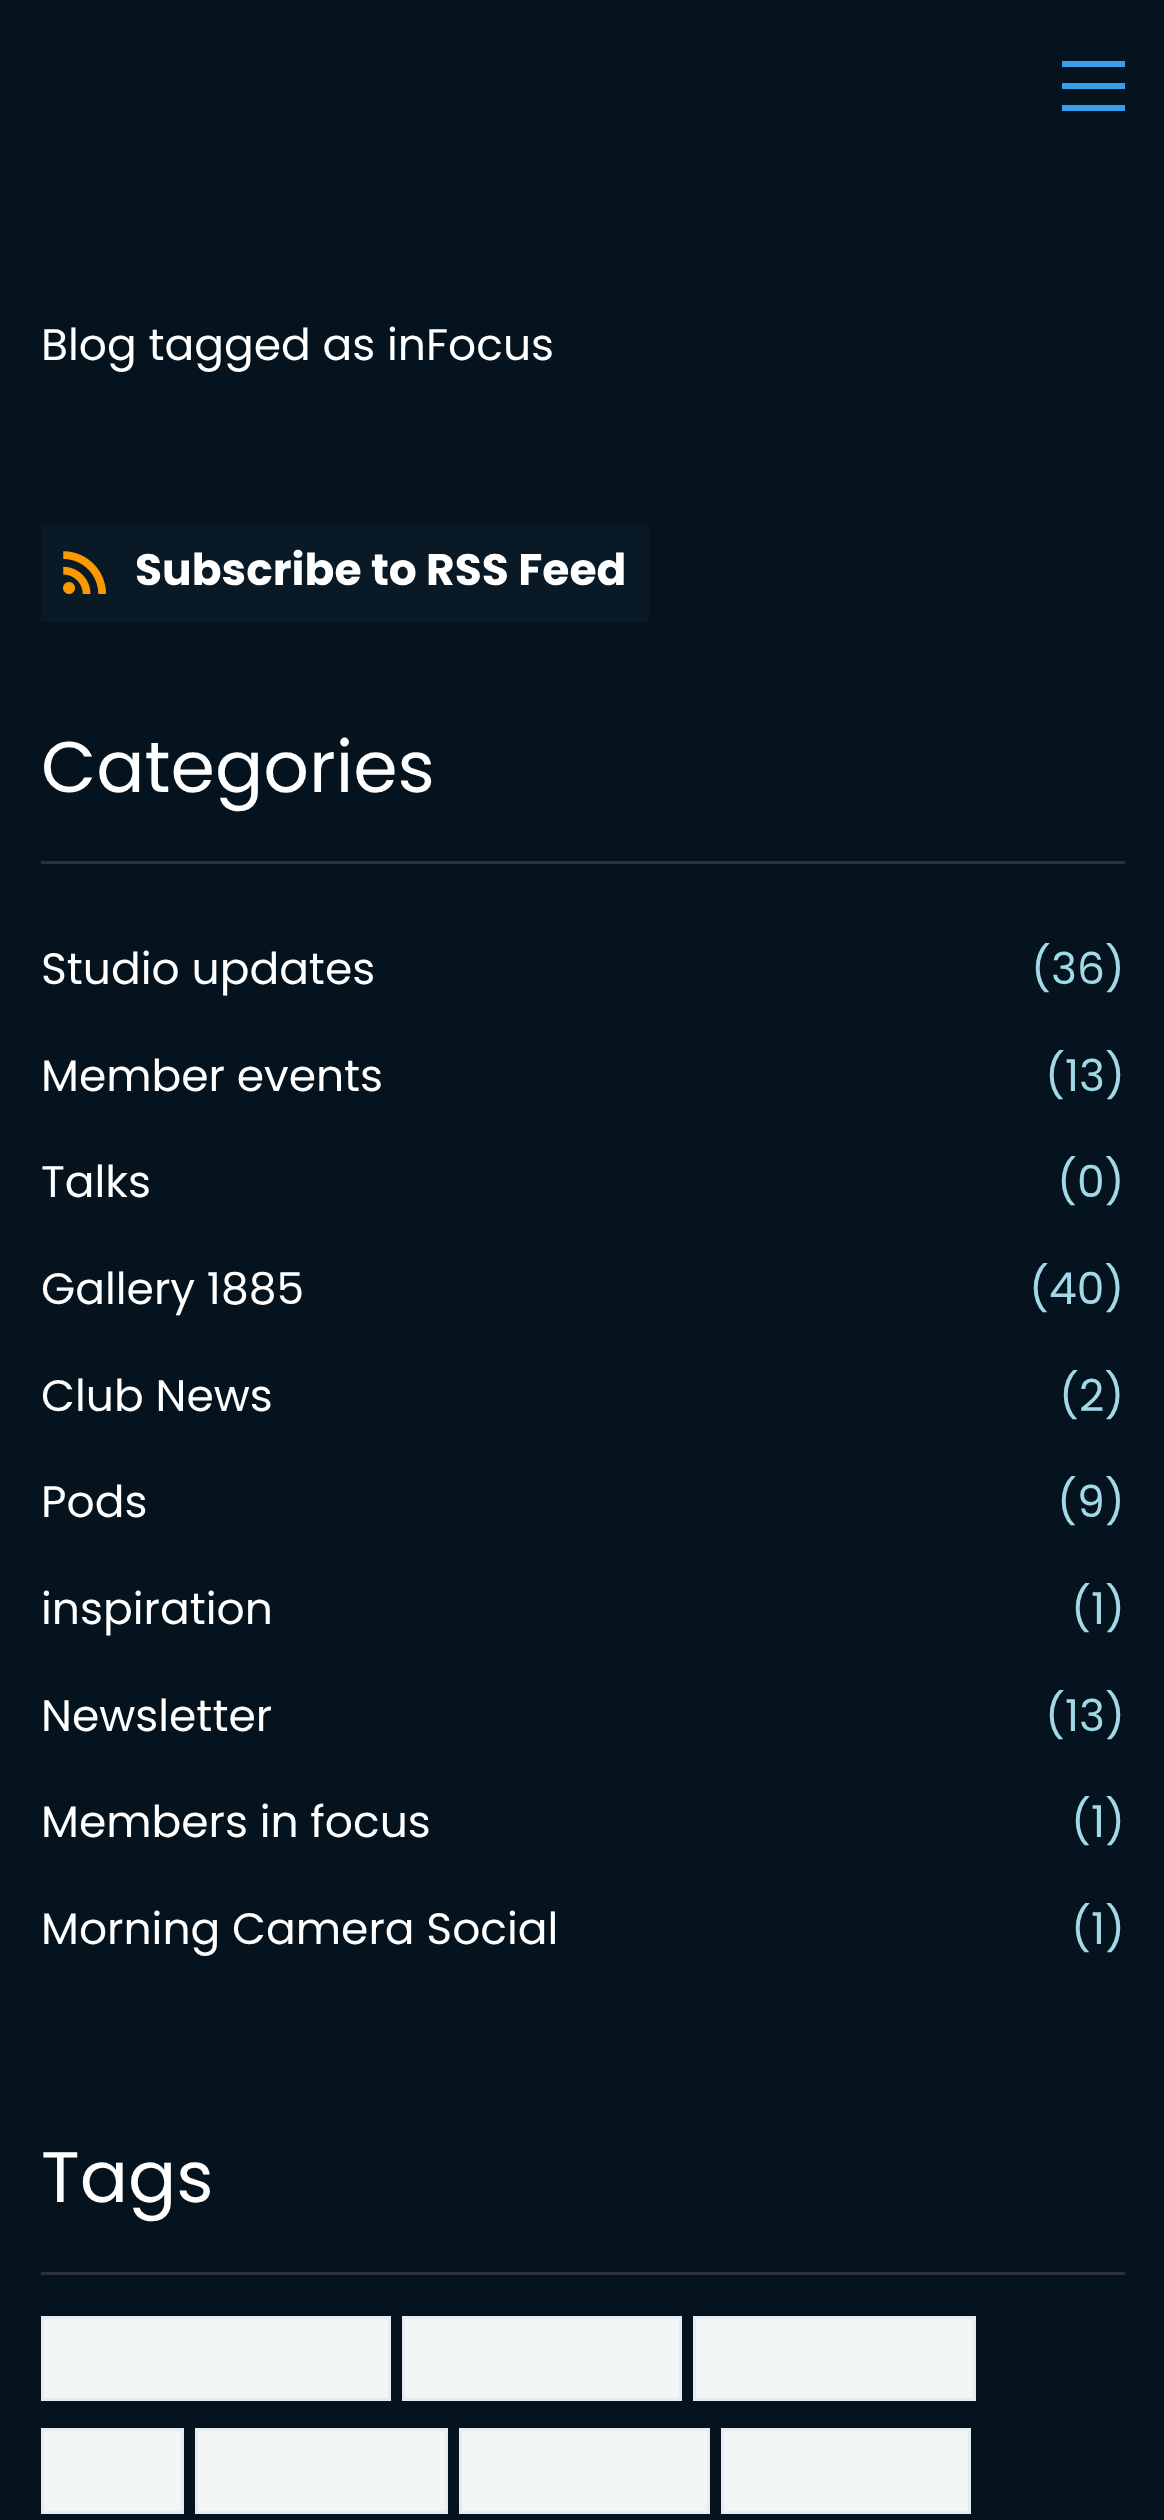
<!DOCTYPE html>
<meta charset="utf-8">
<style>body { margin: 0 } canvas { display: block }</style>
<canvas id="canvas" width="1164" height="2520"></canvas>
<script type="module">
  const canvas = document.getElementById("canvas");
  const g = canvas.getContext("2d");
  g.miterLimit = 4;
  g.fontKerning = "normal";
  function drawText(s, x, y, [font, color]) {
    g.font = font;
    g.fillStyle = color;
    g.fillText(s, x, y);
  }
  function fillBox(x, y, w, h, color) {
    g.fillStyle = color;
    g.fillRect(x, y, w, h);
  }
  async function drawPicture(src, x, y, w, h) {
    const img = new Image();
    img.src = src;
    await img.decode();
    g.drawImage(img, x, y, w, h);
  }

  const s1 = ["44px Poppins", "#FFFFFF"];
  const s2 = ["bold 44px Poppins", "#FFFFFF"];
  const s3 = ["71.5px Poppins", "#FFFFFF"];
  const s4 = ["44px Poppins", "#A1D9E8"];

  fillBox(0, 0, 1164, 2520, "#04131D");
  fillBox(1062, 61, 63, 6, "#369EEA");
  fillBox(1062, 83, 63, 6, "#369EEA");
  fillBox(1062, 105, 63, 6, "#369EEA");
  drawText("Blog tagged as inFocus", 41, 360, s1);
  fillBox(41, 525, 608, 97, "#091A26");
  await drawPicture("pic1.png", 63, 551, 43, 43);
  drawText("Subscribe to RSS Feed", 135, 585, s2);
  fillBox(41, 861, 1084, 3, "#303041");
  drawText("Categories", 41, 792, s3);
  drawText("Studio updates", 41, 984, s1);
  drawText("(36)", 1031, 984, s4);
  drawText("Member events", 41, 1091, s1);
  drawText("(13)", 1045, 1091, s4);
  drawText("Talks", 41, 1197, s1);
  drawText("(0)", 1057, 1197, s4);
  drawText("Gallery 1885", 41, 1304, s1);
  drawText("(40)", 1029, 1304, s4);
  drawText("Club News", 41, 1411, s1);
  drawText("(2)", 1059, 1411, s4);
  drawText("Pods", 41, 1517, s1);
  drawText("(9)", 1057, 1517, s4);
  drawText("inspiration", 41, 1624, s1);
  drawText("(1)", 1071, 1624, s4);
  drawText("Newsletter", 41, 1731, s1);
  drawText("(13)", 1045, 1731, s4);
  drawText("Members in focus", 41, 1837, s1);
  drawText("(1)", 1071, 1837, s4);
  drawText("Morning Camera Social", 41, 1944, s1);
  drawText("(1)", 1071, 1944, s4);
  fillBox(41, 2272, 1084, 3, "#303041");
  drawText("Tags", 41, 2202, s3);
  g.fillStyle = "#F3F6F7";
  g.beginPath();
  g.rect(42.5, 2317.5, 347, 82);
  g.fill();
  g.strokeStyle = "#E7EDEF";
  g.lineWidth = 3;
  g.stroke();
  g.beginPath();
  g.rect(403.5, 2317.5, 277, 82);
  g.fill();
  g.stroke();
  g.beginPath();
  g.rect(694.5, 2317.5, 280, 82);
  g.fill();
  g.stroke();
  g.beginPath();
  g.rect(42.5, 2429.5, 140, 83);
  g.fill();
  g.stroke();
  g.beginPath();
  g.rect(196.5, 2429.5, 250, 83);
  g.fill();
  g.stroke();
  g.beginPath();
  g.rect(460.5, 2429.5, 248, 83);
  g.fill();
  g.stroke();
  g.beginPath();
  g.rect(722.5, 2429.5, 247, 83);
  g.fill();
  g.stroke();
</script>
